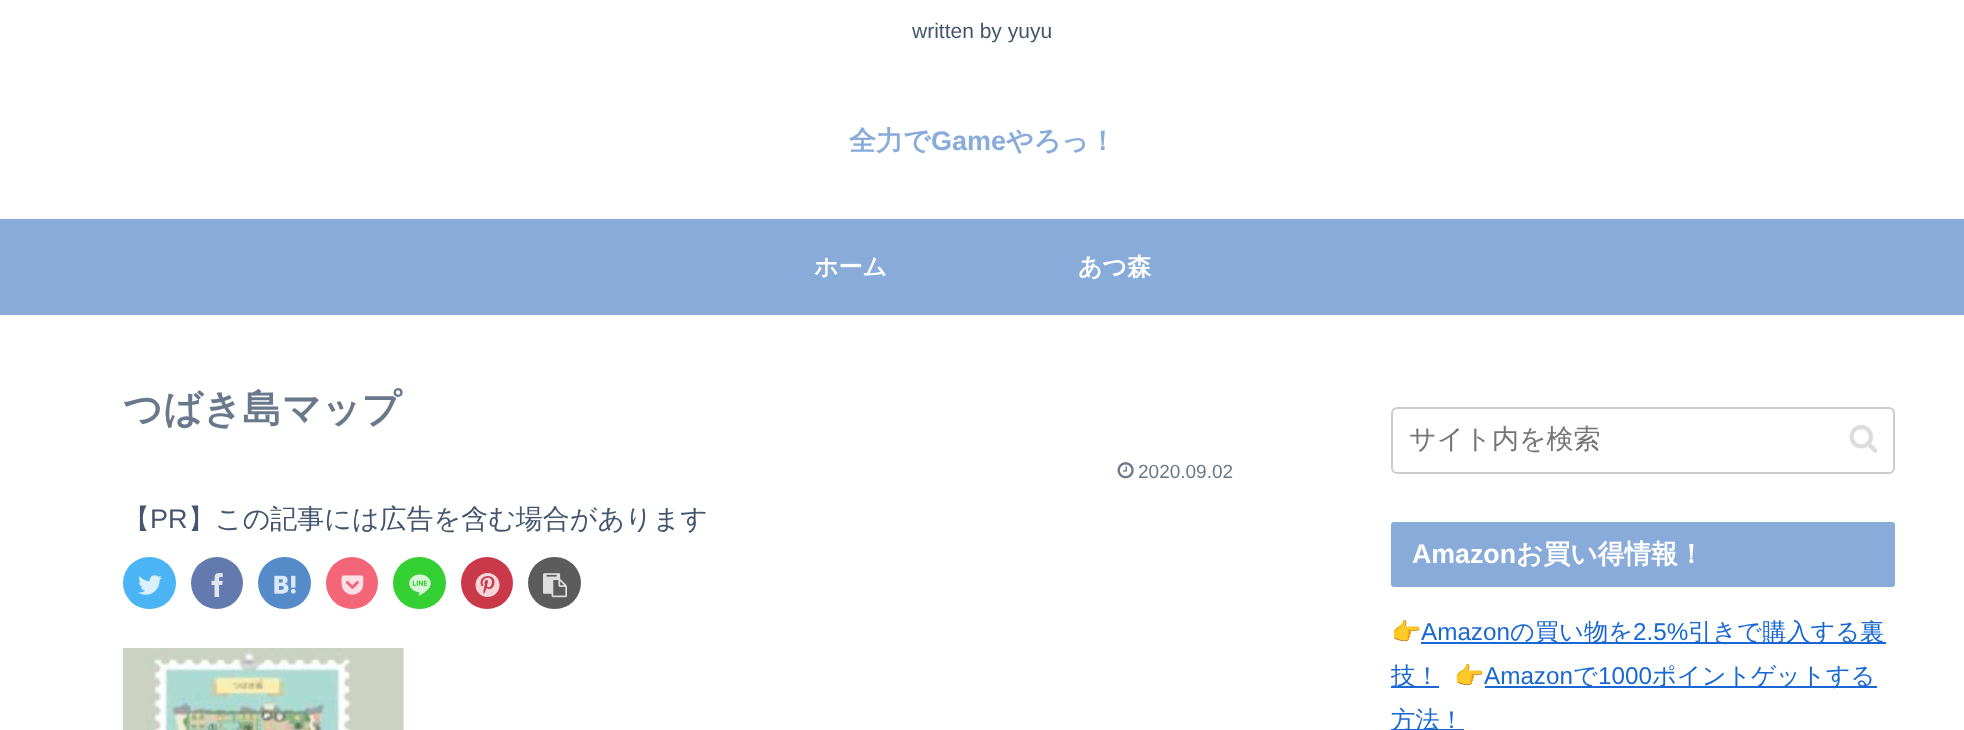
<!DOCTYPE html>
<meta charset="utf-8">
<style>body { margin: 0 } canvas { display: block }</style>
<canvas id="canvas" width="1964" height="730"></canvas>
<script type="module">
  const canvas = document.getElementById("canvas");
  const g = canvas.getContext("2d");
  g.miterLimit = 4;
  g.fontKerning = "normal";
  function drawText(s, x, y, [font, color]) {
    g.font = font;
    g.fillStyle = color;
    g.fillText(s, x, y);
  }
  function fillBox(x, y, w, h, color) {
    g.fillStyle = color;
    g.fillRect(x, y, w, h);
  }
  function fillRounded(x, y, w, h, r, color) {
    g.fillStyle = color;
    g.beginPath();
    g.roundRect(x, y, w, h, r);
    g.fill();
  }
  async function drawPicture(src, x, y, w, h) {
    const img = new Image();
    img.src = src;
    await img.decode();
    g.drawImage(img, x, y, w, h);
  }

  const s1 = ["21px Liberation Sans", "#44566D"];
  const s2 = ["bold 27px WenQuanYi Zen Hei", "#88ABDA"];
  const s3 = ["bold 27px Liberation Sans", "#88ABDA"];
  const s4 = ["bold 24px WenQuanYi Zen Hei", "#FFFFFF"];
  const s5 = ["bold 39px WenQuanYi Zen Hei", "#69788A"];
  const s6 = ["19px Liberation Sans", "#69788A"];
  const s7 = ["500 27px WenQuanYi Zen Hei", "#44566D"];
  const s8 = ["27px Liberation Sans", "#44566D"];
  const s9 = ["500 27px WenQuanYi Zen Hei", "#757575"];
  const s10 = ["bold 26.75px Liberation Sans", "#FFFFFF"];
  const s11 = ["bold 26.75px WenQuanYi Zen Hei", "#FFFFFF"];
  const s12 = ["24.25px Noto Color Emoji", "#44566D"];
  const s13 = ["24.25px Liberation Sans", "#1967D2"];
  const s14 = ["500 24.25px WenQuanYi Zen Hei", "#1967D2"];

  fillBox(0, 0, 1964, 730, "#FFFFFF");
  drawText("written by yuyu", 912, 38, s1);
  drawText("全力で", 849, 150, s2);
  drawText("Game", 931, 150, s3);
  drawText("やろっ！", 1006, 150, s2);
  fillBox(0, 219, 1964, 96, "#88ABDA");
  drawText("ホーム", 814, 275, s4);
  drawText("あつ森", 1078, 275, s4);
  drawText("つばき島マップ", 123, 422, s5);
  await drawPicture("pic1.png", 1117, 462, 17, 17);
  drawText("2020.09.02", 1138, 478, s6);
  drawText("【", 123, 528, s7);
  drawText("PR", 150, 528, s8);
  drawText("】この記事には広告を含む場合があります", 188, 528, s7);
  fillRounded(123, 557, 53, 52, 26, "#4AB4F5");
  await drawPicture("pic2.png", 138, 575, 24, 20);
  g.fillStyle = "#627AAD";
  g.beginPath();
  g.arc(217, 583, 26, 0, Math.PI * 2);
  g.fill();
  await drawPicture("pic3.png", 211, 573, 12, 24);
  fillRounded(258, 557, 53, 52, 26, "#568BCA");
  await drawPicture("pic4.png", 274, 575, 22, 19);
  g.fillStyle = "#F26678";
  g.beginPath();
  g.arc(352, 583, 26, 0, Math.PI * 2);
  g.fill();
  await drawPicture("pic5.png", 341, 575, 23, 20);
  fillRounded(393, 557, 53, 52, 26, "#33CF33");
  await drawPicture("pic6.png", 409, 574, 22, 22);
  g.fillStyle = "#CA3949";
  g.beginPath();
  g.arc(487, 583, 26, 0, Math.PI * 2);
  g.fill();
  await drawPicture("pic7.png", 475, 573, 25, 24);
  fillRounded(528, 557, 53, 52, 26, "#5C5C5C");
  await drawPicture("pic8.png", 543, 573, 24, 25);
  await drawPicture("pic9.png", 123, 648, 281, 82);
  g.beginPath();
  g.roundRect(1392, 408, 502, 65, 5);
  g.strokeStyle = "#CCCCCC";
  g.lineWidth = 2;
  g.stroke();
  drawText("サイト内を検索", 1409, 448, s9);
  await drawPicture("pic10.png", 1849, 425, 29, 28);
  fillRounded(1391, 522, 504, 65, 3, "#88ABDA");
  drawText("Amazon", 1412, 563, s10);
  drawText("お買い得情報！", 1516, 563, s11);
  drawText("👉", 1391, 640, s12);
  drawText("Amazon", 1421, 640, s13);
  fillBox(1421, 642, 465, 2, "#1967D2");
  drawText("の買い物を", 1510, 640, s14);
  drawText("2.5%", 1633, 640, s13);
  drawText("引きで購入する裏", 1688, 640, s14);
  fillBox(1391, 686, 48, 2, "#1967D2");
  drawText("技！", 1391, 684, s14);
  drawText("👉", 1454, 684, s12);
  drawText("Amazon", 1484, 684, s13);
  fillBox(1485, 686, 392, 2, "#1967D2");
  drawText("で", 1573, 684, s14);
  drawText("1000", 1598, 684, s13);
  drawText("ポイントゲットする", 1652, 684, s14);
  fillBox(1391, 729, 73, 1, "#1967D2");
  drawText("方法！", 1391, 728, s14);
</script>
